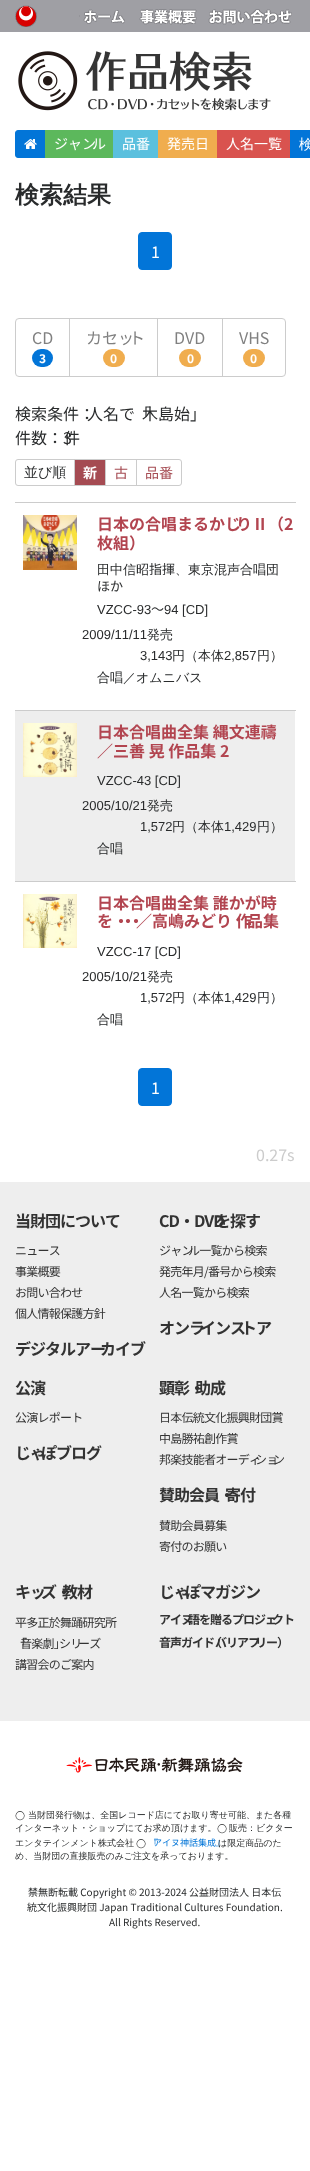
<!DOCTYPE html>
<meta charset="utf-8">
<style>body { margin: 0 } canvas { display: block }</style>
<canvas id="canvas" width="310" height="2171"></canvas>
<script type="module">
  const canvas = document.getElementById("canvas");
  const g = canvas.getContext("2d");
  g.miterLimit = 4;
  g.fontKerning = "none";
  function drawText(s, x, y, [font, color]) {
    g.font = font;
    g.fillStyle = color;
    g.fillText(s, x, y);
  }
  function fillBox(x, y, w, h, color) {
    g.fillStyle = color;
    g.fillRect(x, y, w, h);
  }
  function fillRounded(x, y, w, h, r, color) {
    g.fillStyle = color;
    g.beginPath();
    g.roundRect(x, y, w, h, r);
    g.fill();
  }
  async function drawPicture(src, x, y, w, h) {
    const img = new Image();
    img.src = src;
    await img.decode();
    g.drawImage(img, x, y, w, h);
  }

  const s1 = ["14px Noto Sans JP", "#FFFFFF"];
  const s2 = ["500 14px WenQuanYi Zen Hei", "#FFFFFF"];
  const s3 = ["bold 24px WenQuanYi Zen Hei", "#292B2C"];
  const s4 = ["16px Noto Sans JP", "#FFFFFF"];
  const s5 = ["16px Noto Sans JP", "#808080"];
  const s6 = ["bold 12px 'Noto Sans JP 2'", "#FFFFFF"];
  const s7 = ["16px Noto Sans JP", "#292B2C"];
  const s8 = ["500 14px WenQuanYi Zen Hei", "#292B2C"];
  const s9 = ["bold 14px 'Noto Sans JP 2'", "#FFFFFF"];
  const s10 = ["14px Noto Sans JP", "#A54B52"];
  const s11 = ["bold 16px Noto Sans JP", "#B24550"];
  const s12 = ["500 13px WenQuanYi Zen Hei", "#292B2C"];
  const s13 = ["13px Noto Sans JP", "#292B2C"];
  const s14 = ["13px Liberation Sans", "#292B2C"];
  const s15 = ["bold 16px 'Noto Sans JP 2'", "#B24550"];
  const s16 = ["16px Noto Sans JP", "#CCCCCC"];
  const s17 = ["bold 16px 'Noto Sans JP 2'", "#333333"];
  const s18 = ["12px Noto Sans JP", "#333333"];
  const s19 = ["bold 12px 'Noto Sans JP 2'", "#333333"];
  const s20 = ["9px DejaVu Sans", "#292B2C"];
  const s21 = ["500 9px WenQuanYi Zen Hei", "#292B2C"];
  const s22 = ["9px Noto Sans JP", "#0275D8"];
  const s23 = ["10px Noto Sans JP", "#292B2C"];

  fillBox(0, 0, 310, 2171, "#FFFFFF");
  fillBox(0, 0, 310, 32, "#9F9FA4");
  await drawPicture("pic1.png", 15, 5, 22, 22);
  await drawPicture("pic2.png", 79, 9, 46, 15);
  await drawPicture("pic3.png", 139, 9, 58, 16);
  await drawPicture("pic4.png", 208, 9, 84, 16);
  await drawPicture("pic5.png", 18, 51, 253, 60);
  g.fillStyle = "#0275D8";
  g.beginPath();
  g.roundRect(15.5, 130.5, 30, 27, [2.5, 0, 0, 2.5]);
  g.fill();
  g.strokeStyle = "#0275D8";
  g.stroke();
  await drawPicture("pic6.png", 24, 139, 13, 10);
  fillBox(45, 130, 68, 28, "#5CB85C");
  drawText("ジャン", 54, 149, s1);
  drawText("ル", 92, 149, s1);
  fillBox(113, 130, 45, 28, "#5BC0DE");
  drawText("品番", 122, 149, s1);
  fillBox(158, 130, 59, 28, "#F0AD4E");
  drawText("発売日", 167, 149, s1);
  fillBox(217, 130, 73, 28, "#D9534F");
  drawText("人名一覧", 226, 149, s1);
  fillBox(290, 130, 20, 28, "#0275D8");
  drawText("検", 299, 149, s2);
  drawText("検索結果", 15, 203, s3);
  g.fillStyle = "#0275D8";
  g.beginPath();
  g.roundRect(138.5, 232.5, 33, 37, 3.5);
  g.fill();
  g.stroke();
  drawText("1", 151, 258, s4);
  g.beginPath();
  g.roundRect(15.5, 318.5, 54, 58, [3.5, 0, 0, 3.5]);
  g.strokeStyle = "#CCCCCC";
  g.stroke();
  drawText("CD", 32, 344, s5);
  fillRounded(32, 349, 21, 18, 9, "#0275D8");
  drawText("3", 39, 363, s6);
  g.strokeRect(69.5, 318.5, 88, 58);
  drawText("カセッ", 86, 344, s5);
  drawText("ト", 129, 344, s5);
  fillRounded(103, 349, 22, 18, 9, "#F0AD4E");
  drawText("0", 110, 363, s6);
  g.strokeRect(157.5, 318.5, 65, 58);
  drawText("DVD", 174, 344, s5);
  fillRounded(179, 349, 22, 18, 9, "#F0AD4E");
  drawText("0", 187, 363, s6);
  g.beginPath();
  g.roundRect(222.5, 318.5, 63, 58, [0, 3.5, 3.5, 0]);
  g.stroke();
  drawText("VHS", 239, 344, s5);
  fillRounded(243, 349, 22, 18, 9, "#F0AD4E");
  drawText("0", 250, 363, s6);
  drawText("検索条件：", 15, 420, s7);
  drawText("人名で「", 87, 420, s7);
  drawText("木島始」", 142, 420, s7);
  drawText("件数：3", 15, 444, s7);
  drawText("件", 64, 444, s7);
  g.beginPath();
  g.roundRect(15.5, 459.5, 59, 26, [2.5, 0, 0, 2.5]);
  g.stroke();
  drawText("並び順", 24, 477, s8);
  g.fillStyle = "#A54B52";
  g.beginPath();
  g.rect(74.5, 459.5, 31, 26);
  g.fill();
  g.stroke();
  drawText("新", 83, 478, s9);
  g.strokeRect(105.5, 459.5, 31, 26);
  drawText("古", 114, 478, s10);
  g.beginPath();
  g.roundRect(136.5, 459.5, 45, 26, [0, 2.5, 2.5, 0]);
  g.stroke();
  drawText("品番", 145, 478, s10);
  await drawPicture("pic7.png", 23, 515, 54, 55);
  fillBox(15, 502, 281, 1, "#CCCCCC");
  drawText("日本の合唱まるかじ", 97, 530, s11);
  drawText("りⅡ（2", 236, 530, s11);
  drawText("枚組）", 97, 549, s11);
  drawText("田中信昭", 97, 574, s12);
  drawText("指揮", 149, 574, s13);
  drawText("、東京混声合唱団", 175, 574, s12);
  drawText("ほか", 97, 591, s13);
  drawText("VZCC-93", 97, 614, s14);
  drawText("〜", 151, 614, s13);
  drawText("94 [CD]", 164, 614, s14);
  drawText("2009/11/11", 82, 639, s14);
  drawText("発売", 147, 639, s12);
  drawText("3,143", 140, 660, s14);
  drawText("円（本体", 172, 660, s12);
  drawText("2,857", 224, 660, s14);
  drawText("円）", 257, 660, s12);
  drawText("合唱／オムニバス", 97, 682, s12);
  fillBox(15, 711, 280, 170, "#EEEEEE");
  await drawPicture("pic8.png", 23, 723, 54, 54);
  fillBox(15, 710, 281, 1, "#CCCCCC");
  drawText("日本合唱曲全集 縄文連禱", 97, 738, s15);
  drawText("／三善 晃 作品集 2", 97, 757, s15);
  drawText("VZCC-43 [CD]", 97, 785, s14);
  drawText("2005/10/21", 82, 810, s14);
  drawText("発売", 147, 810, s12);
  drawText("1,572", 140, 831, s14);
  drawText("円（本体", 172, 831, s12);
  drawText("1,429", 224, 831, s14);
  drawText("円）", 257, 831, s12);
  drawText("合唱", 97, 853, s12);
  await drawPicture("pic9.png", 23, 894, 54, 54);
  fillBox(15, 881, 281, 1, "#CCCCCC");
  drawText("日本合唱曲全集 誰かが時", 97, 909, s15);
  drawText("を・", 97, 927, s15);
  drawText("・", 120, 927, s15);
  drawText("・", 128, 927, s15);
  drawText("／高嶋みどり 作", 136, 927, s15);
  drawText("品集", 247, 927, s15);
  drawText("VZCC-17 [CD]", 97, 956, s14);
  drawText("2005/10/21", 82, 981, s14);
  drawText("発売", 147, 981, s12);
  drawText("1,572", 140, 1002, s14);
  drawText("円（本体", 172, 1002, s12);
  drawText("1,429", 224, 1002, s14);
  drawText("円）", 257, 1002, s12);
  drawText("合唱", 97, 1024, s12);
  g.fillStyle = "#0275D8";
  g.beginPath();
  g.roundRect(138.5, 1068.5, 33, 37, 3.5);
  g.fill();
  g.strokeStyle = "#0275D8";
  g.stroke();
  drawText("1", 151, 1094, s4);
  drawText("0.27s", 256, 1161, s16);
  fillBox(0, 1182, 310, 539, "#EEEEEE");
  g.letterSpacing = "-1px";
  drawText("当財団について", 15, 1227, s17);
  g.letterSpacing = "-0.75px";
  drawText("ニュース", 15, 1255, s18);
  drawText("事業概要", 15, 1276, s18);
  drawText("お問い合わせ", 15, 1297, s18);
  drawText("個人情報保護方針", 15, 1318, s18);
  g.letterSpacing = "-1px";
  drawText("デジタルアー", 15, 1355, s17);
  drawText("カイブ", 100, 1355, s17);
  drawText("CD・DVD", 159, 1227, s17);
  drawText("を探す", 215, 1227, s17);
  g.letterSpacing = "-0.75px";
  drawText("ジャン", 159, 1255, s18);
  drawText("ル一覧から検索", 188, 1255, s18);
  drawText("発売年月/番号から検索", 159, 1276, s18);
  drawText("人名一覧から検索", 159, 1297, s18);
  g.letterSpacing = "-1px";
  drawText("オンラ", 159, 1334, s17);
  drawText("インス", 200, 1334, s17);
  drawText("トア", 241, 1334, s17);
  drawText("公演", 15, 1394, s17);
  g.letterSpacing = "-0.75px";
  drawText("公演レポート", 15, 1422, s18);
  g.letterSpacing = "-1px";
  drawText("じゃ", 15, 1459, s17);
  drawText("ぽブログ", 41, 1459, s17);
  drawText("顕彰・", 159, 1394, s17);
  drawText("助成", 195, 1394, s17);
  g.letterSpacing = "-0.75px";
  drawText("日本伝統文化振興財団賞", 159, 1422, s18);
  drawText("中島勝祐創作賞", 159, 1443, s18);
  drawText("邦楽技能者オーディ", 159, 1464, s18);
  drawText("ショ", 255, 1464, s18);
  drawText("ン", 273, 1464, s18);
  g.letterSpacing = "-1px";
  drawText("賛助会員・", 159, 1501, s17);
  drawText("寄付", 225, 1501, s17);
  g.letterSpacing = "-0.75px";
  drawText("賛助会員募集", 159, 1530, s18);
  drawText("寄付のお願い", 159, 1551, s18);
  g.letterSpacing = "-1px";
  drawText("キッ", 15, 1598, s17);
  drawText("ズ・", 41, 1598, s17);
  drawText("教材", 62, 1598, s17);
  g.letterSpacing = "-0.75px";
  drawText("平多正於舞踊研究所", 15, 1627, s18);
  drawText("「", 15, 1648, s18);
  drawText("音楽劇」", 20, 1648, s18);
  drawText("シリ", 59, 1648, s18);
  drawText("ーズ", 78, 1648, s18);
  drawText("講習会のご案内", 15, 1669, s18);
  g.letterSpacing = "-1px";
  drawText("じゃ", 159, 1598, s17);
  drawText("ぽマガジン", 185, 1598, s17);
  drawText("アイヌ", 159, 1624, s19);
  drawText("語を贈るプロジェ", 188, 1624, s19);
  drawText("クト", 272, 1624, s19);
  drawText("音声ガイド", 159, 1647, s19);
  drawText("（", 210, 1647, s19);
  drawText("バリアフ", 215, 1647, s19);
  drawText("リー）", 255, 1647, s19);
  await drawPicture("pic10.png", 66, 1757, 177, 16);
  g.letterSpacing = "0px";
  drawText("◯", 15, 1818, s20);
  drawText("当財団発行物は、全国レコード店にてお取り寄せ可能、また各種", 28, 1818, s21);
  drawText("インターネット・ショップにてお求め頂けます。", 15, 1831, s21);
  drawText("◯", 217, 1831, s20);
  drawText("販売：ビクター", 229, 1831, s21);
  drawText("エンタテインメント株式会社", 15, 1846, s21);
  drawText("◯", 136, 1846, s20);
  drawText("『", 149, 1846, s22);
  drawText("アイヌ神話集成』", 153, 1846, s22);
  drawText("は限定商品のた", 218, 1846, s21);
  drawText("め、当財団の直接販売のみご注文を承っております。", 15, 1859, s21);
  drawText("禁無断転載 Copyright © 2013-2024 公益財団法人 日本伝", 28, 1896, s23);
  drawText("統文化振興財団 Japan Traditional Cultures Foundation.", 27, 1911, s23);
  drawText("All Rights Reserved.", 109, 1926, s23);
</script>
